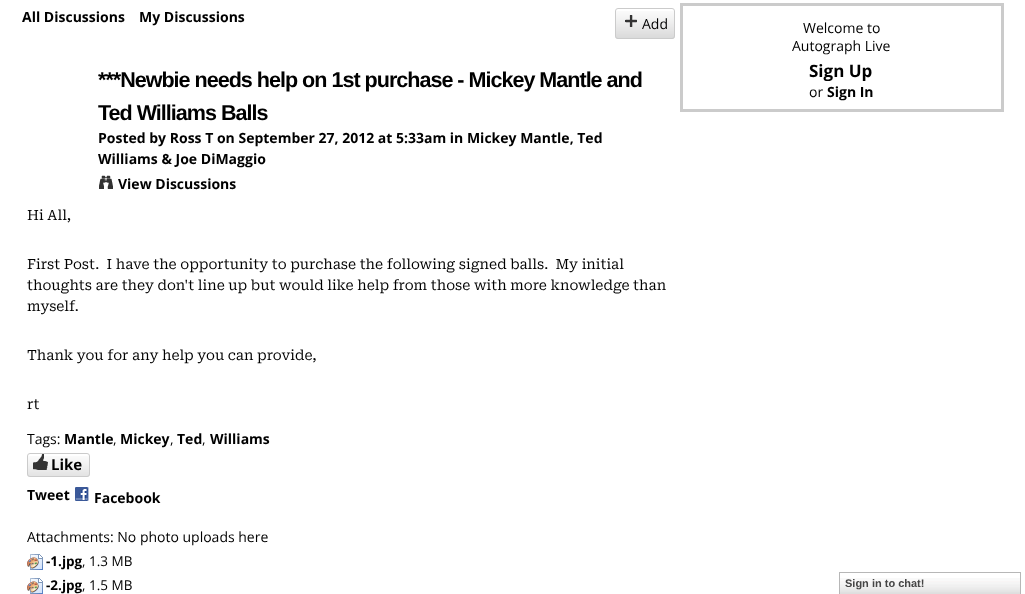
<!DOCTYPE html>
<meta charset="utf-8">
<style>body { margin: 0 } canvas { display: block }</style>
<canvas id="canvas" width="1025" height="594"></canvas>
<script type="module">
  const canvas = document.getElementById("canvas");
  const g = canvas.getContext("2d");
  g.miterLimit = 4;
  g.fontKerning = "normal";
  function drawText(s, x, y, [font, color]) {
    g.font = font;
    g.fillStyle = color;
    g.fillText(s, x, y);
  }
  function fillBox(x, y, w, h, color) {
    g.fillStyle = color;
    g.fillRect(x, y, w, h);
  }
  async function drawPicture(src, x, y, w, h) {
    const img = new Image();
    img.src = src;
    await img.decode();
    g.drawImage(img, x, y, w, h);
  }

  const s1 = ["bold 14px Open Sans", "#000000"];
  const s2 = ["14px Open Sans", "#000000"];
  const s3 = ["bold 21.55px Liberation Sans", "#000000"];
  const s4 = ["14px Roboto Serif", "#000000"];
  const s5 = ["bold 15px Open Sans", "#000000"];
  const s6 = ["bold 13.5px Open Sans", "#000000"];
  const s7 = ["13.5px Open Sans", "#000000"];
  const s8 = ["bold 17px Open Sans", "#000000"];
  const s9 = ["bold 11px Liberation Sans", "#454545"];

  fillBox(0, 0, 1025, 594, "#FFFFFF");
  drawText("All Discussions", 22, 22, s1);
  drawText("My Discussions", 139, 22, s1);
  await drawPicture("pic1.png", 615, 11, 60, 28);
  g.beginPath();
  g.roundRect(615.5, 8.5, 59, 30, 2.5);
  g.strokeStyle = "#CBCBCB";
  g.stroke();
  await drawPicture("pic2.png", 625, 15, 12, 12);
  drawText("Add", 642, 29, s2);
  g.letterSpacing = "-1px";
  drawText("***Newbie needs help on 1st purchase - Mickey Mantle and", 98, 87, s3);
  drawText("Ted Williams Balls", 98, 120, s3);
  g.letterSpacing = "0px";
  drawText("Posted by Ross T on September 27, 2012 at 5:33am in Mickey Mantle, Ted", 98, 143, s1);
  drawText("Williams & Joe DiMaggio", 98, 164, s1);
  await drawPicture("pic3.png", 99, 175, 14, 14);
  drawText("View Discussions", 118, 189, s1);
  drawText("Hi All,", 27, 220, s4);
  drawText("First Post.  I have the opportunity to purchase the following signed balls.  My initial", 27, 269, s4);
  drawText("thoughts are they don't line up but would like help from those with more knowledge than", 27, 290, s4);
  drawText("myself.", 27, 311, s4);
  drawText("Thank you for any help you can provide,", 27, 360, s4);
  drawText("rt", 27, 409, s4);
  drawText("Tags:", 27, 444, s2);
  drawText("Mantle", 64, 444, s1);
  drawText(",", 113, 444, s2);
  drawText("Mickey", 120, 444, s1);
  drawText(",", 170, 444, s2);
  drawText("Ted", 177, 444, s1);
  drawText(",", 202, 444, s2);
  drawText("Williams", 210, 444, s1);
  await drawPicture("pic4.png", 27, 456, 63, 21);
  g.beginPath();
  g.roundRect(27.5, 453.5, 62, 23, 2.5);
  g.stroke();
  await drawPicture("pic5.png", 33, 454, 15, 16);
  drawText("Like", 51, 470, s5);
  drawText("Tweet", 27, 500, s1);
  await drawPicture("pic6.png", 75, 487, 14, 14);
  drawText("Facebook", 94, 503, s1);
  drawText("Attachments: No photo uploads here", 27, 542, s2);
  await drawPicture("pic7.png", 27, 554, 16, 16);
  drawText("-1.jpg", 46, 566, s6);
  drawText(", 1.3 MB", 82, 566, s7);
  await drawPicture("pic7.png", 27, 578, 16, 16);
  drawText("-2.jpg", 46, 590, s6);
  drawText(", 1.5 MB", 82, 590, s7);
  g.lineWidth = 3;
  g.strokeRect(681.5, 4.5, 321, 106);
  drawText("Welcome to", 803, 33, s2);
  drawText("Autograph Live", 792, 51, s2);
  drawText("Sign Up", 809, 77, s8);
  drawText("or", 809, 97, s2);
  drawText("Sign In", 827, 97, s1);
  await drawPicture("pic8.png", 840, 578, 180, 16);
  g.strokeStyle = "#B7B7B7";
  g.lineWidth = 1;
  g.strokeRect(839.5, 572.5, 181, 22);
  drawText("Sign in to chat!", 845, 587, s9);
</script>
